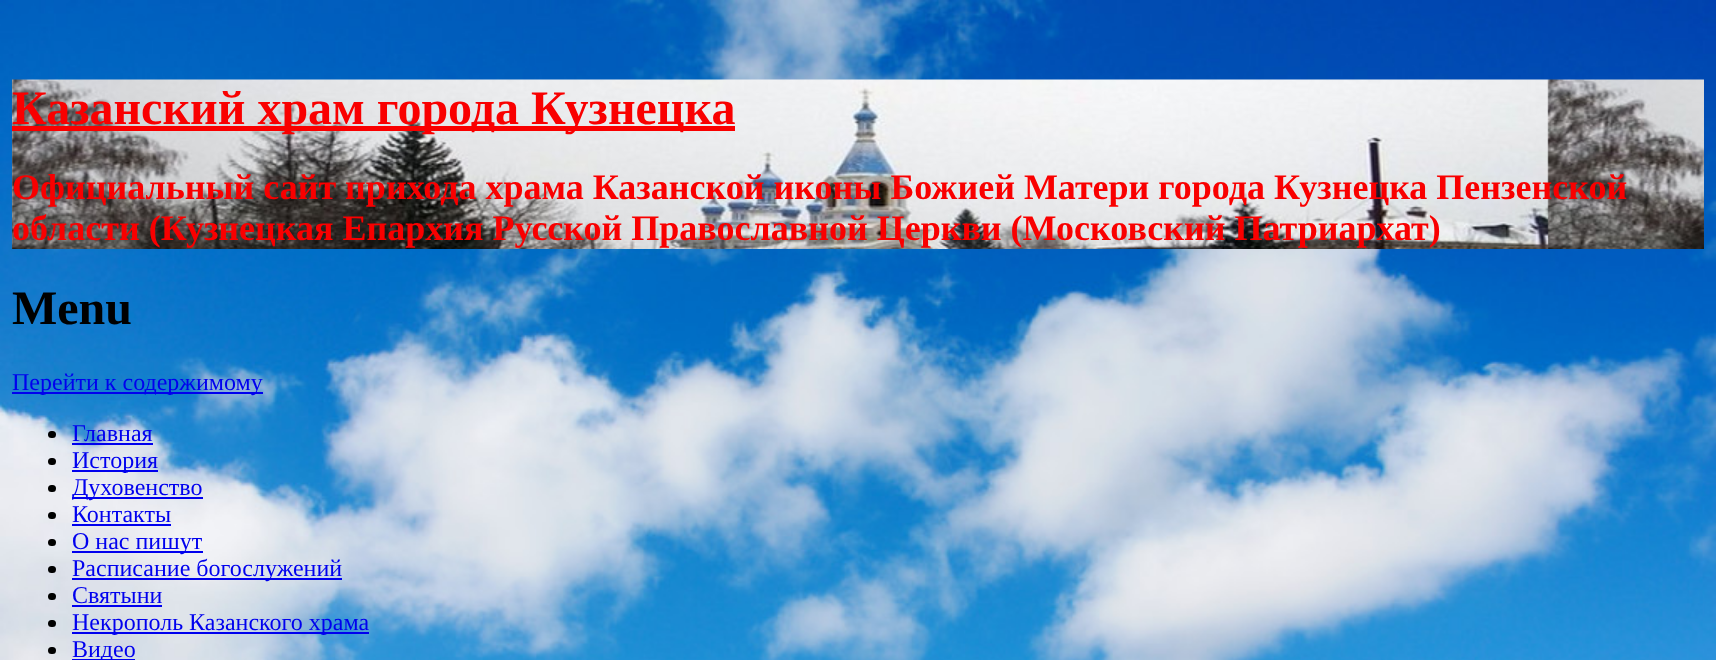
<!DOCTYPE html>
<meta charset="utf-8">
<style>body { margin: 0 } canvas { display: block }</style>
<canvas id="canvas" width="1716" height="660"></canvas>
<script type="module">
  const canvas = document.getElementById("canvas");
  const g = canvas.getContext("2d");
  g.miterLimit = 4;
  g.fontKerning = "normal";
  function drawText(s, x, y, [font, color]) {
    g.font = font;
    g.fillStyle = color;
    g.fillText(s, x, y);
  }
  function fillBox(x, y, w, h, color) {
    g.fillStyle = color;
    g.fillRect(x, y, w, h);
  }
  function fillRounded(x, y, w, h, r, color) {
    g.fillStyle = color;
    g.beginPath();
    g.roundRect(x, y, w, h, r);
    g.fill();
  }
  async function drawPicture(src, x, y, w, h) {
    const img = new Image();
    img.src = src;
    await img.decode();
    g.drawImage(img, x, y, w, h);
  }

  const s1 = ["bold 48px Liberation Serif", "#F90000"];
  const s2 = ["bold 36px Liberation Serif", "#F90000"];
  const s3 = ["bold 48px Liberation Serif", "#000000"];
  const s4 = ["24px Liberation Serif", "#0000EE"];

  fillBox(0, 0, 1716, 660, "#FFFFFF");
  await drawPicture("pic1.png", 0, 0, 1716, 660);
  await drawPicture("pic2.png", 12, 79, 1692, 170);
  fillBox(12, 126, 723, 5, "#F90000");
  drawText("Казанский храм города Кузнецка", 12, 124, s1);
  drawText("Официальный сайт прихода храма Казанской иконы Божией Матери города Кузнецка Пензенской", 12, 199, s2);
  drawText("области (Кузнецкая Епархия Русской Православной Церкви (Московский Патриархат)", 12, 240, s2);
  drawText("Menu", 12, 324, s3);
  fillBox(12, 392, 251, 2, "#0000EE");
  drawText("Перейти к содержимому", 12, 390, s4);
  fillRounded(48, 431, 8, 7, 3.5, "#000000");
  drawText("Главная", 72, 441, s4);
  fillBox(72, 443, 81, 2, "#0000EE");
  fillRounded(48, 458, 8, 7, 3.5, "#000000");
  fillBox(72, 470, 86, 2, "#0000EE");
  drawText("История", 72, 468, s4);
  fillRounded(48, 485, 8, 7, 3.5, "#000000");
  fillBox(72, 497, 131, 2, "#0000EE");
  drawText("Духовенство", 72, 495, s4);
  fillRounded(48, 512, 8, 7, 3.5, "#000000");
  drawText("Контакты", 72, 522, s4);
  fillBox(72, 524, 99, 2, "#0000EE");
  fillRounded(48, 539, 8, 7, 3.5, "#000000");
  fillBox(72, 551, 131, 2, "#0000EE");
  drawText("О нас пишут", 72, 549, s4);
  fillRounded(48, 566, 8, 7, 3.5, "#000000");
  fillBox(72, 578, 270, 2, "#0000EE");
  drawText("Расписание богослужений", 72, 576, s4);
  fillRounded(48, 593, 8, 7, 3.5, "#000000");
  drawText("Святыни", 72, 603, s4);
  fillBox(72, 605, 90, 2, "#0000EE");
  fillRounded(48, 620, 8, 7, 3.5, "#000000");
  fillBox(72, 632, 297, 2, "#0000EE");
  drawText("Некрополь Казанского храма", 72, 630, s4);
  fillRounded(48, 647, 8, 7, 3.5, "#000000");
  fillBox(72, 659, 63, 1, "#0000EE");
  drawText("Видео", 72, 657, s4);
</script>
